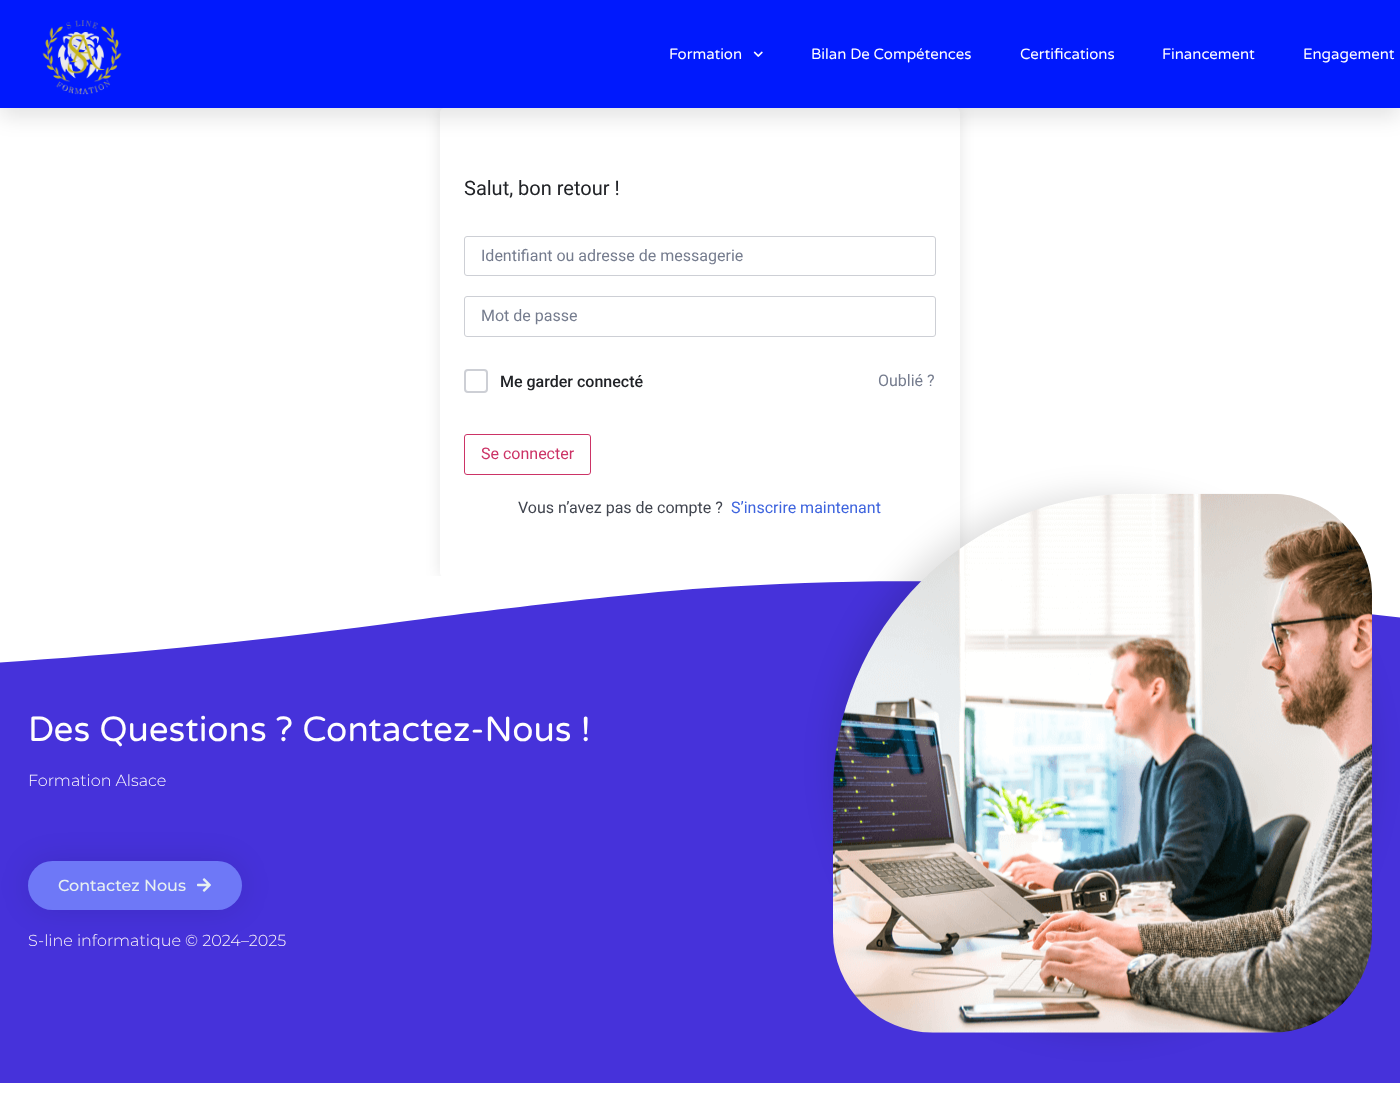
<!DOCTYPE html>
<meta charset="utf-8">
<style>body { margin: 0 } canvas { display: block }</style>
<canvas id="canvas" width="1400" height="1110"></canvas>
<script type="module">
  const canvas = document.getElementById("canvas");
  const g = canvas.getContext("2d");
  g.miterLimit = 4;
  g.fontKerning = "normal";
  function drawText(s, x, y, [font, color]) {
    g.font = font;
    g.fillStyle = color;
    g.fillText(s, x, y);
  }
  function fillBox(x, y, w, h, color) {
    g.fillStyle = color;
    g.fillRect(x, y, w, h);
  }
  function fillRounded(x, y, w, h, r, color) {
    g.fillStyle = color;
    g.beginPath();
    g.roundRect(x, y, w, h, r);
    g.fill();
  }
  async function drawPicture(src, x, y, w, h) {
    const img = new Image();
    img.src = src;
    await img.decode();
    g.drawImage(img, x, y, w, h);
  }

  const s1 = ["15px Varela Round", "#FFFEFE"];
  const s2 = ["20px Roboto", "#212327"];
  const s3 = ["16px Roboto", "#757C8E"];
  const s4 = ["500 16px Roboto", "#212327"];
  const s5 = ["16px Roboto", "#CC3366"];
  const s6 = ["16px Roboto", "#41454F"];
  const s7 = ["16px Roboto", "#3E64DE"];
  const s8 = ["35px Varela Round", "#FFFEFE"];
  const s9 = ["300 16px Montserrat", "#FFFEFE"];
  const s10 = ["500 16px Montserrat", "#E7F0F1"];
  const s11 = ["300 16px Montserrat", "#FEF8F8"];

  fillBox(0, 0, 1400, 1110, "#FFFFFF");
  g.fillStyle = "rgba(0, 0, 0, 0.1)";
  g.filter = "blur(10px)";
  g.beginPath();
  g.rect(0, 10, 1400, 108);
  g.fill();
  g.filter = "none";
  g.save();
  g.beginPath();
  g.moveTo(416, 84);
  g.lineTo(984, 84);
  g.lineTo(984, 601);
  g.lineTo(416, 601);
  g.closePath();
  g.moveTo(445, 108);
  g.lineTo(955, 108);
  g.bezierCurveTo(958, 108, 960, 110, 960, 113);
  g.lineTo(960, 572);
  g.bezierCurveTo(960, 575, 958, 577, 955, 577);
  g.lineTo(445, 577);
  g.bezierCurveTo(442, 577, 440, 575, 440, 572);
  g.lineTo(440, 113);
  g.bezierCurveTo(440, 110, 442, 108, 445, 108);
  g.closePath();
  g.clip("evenodd");
  g.filter = "blur(7.5px)";
  g.beginPath();
  g.roundRect(440, 108, 520, 469, 5);
  g.fill();
  g.filter = "none";
  g.restore();
  fillBox(0, 0, 1400, 108, "#0019FD");
  await drawPicture("pic1.png", 42, 20, 80, 75);
  drawText("Formation", 669, 59, s1);
  await drawPicture("pic2.png", 753, 51, 10, 6);
  drawText("Bilan De Compétences", 811, 59, s1);
  drawText("Certifications", 1020, 59, s1);
  drawText("Financement", 1162, 59, s1);
  drawText("Engagement", 1303, 59, s1);
  drawText("Salut, bon retour !", 464, 195, s2);
  g.beginPath();
  g.roundRect(464.5, 236.5, 471, 39, 2.5);
  g.strokeStyle = "#CDCFD5";
  g.stroke();
  drawText("Identifiant ou adresse de messagerie", 481, 261, s3);
  g.beginPath();
  g.roundRect(464.5, 296.5, 471, 40, 2.5);
  g.stroke();
  drawText("Mot de passe", 481, 321, s3);
  g.beginPath();
  g.roundRect(465, 370, 22, 22, 3);
  g.lineWidth = 2;
  g.stroke();
  drawText("Me garder connecté", 500, 387, s4);
  drawText("Oublié ?", 878, 386, s3);
  g.beginPath();
  g.roundRect(464.5, 434.5, 126, 40, 2.5);
  g.strokeStyle = "#CC3366";
  g.lineWidth = 1;
  g.stroke();
  drawText("Se connecter", 481, 459, s5);
  drawText("Vous n’avez pas de compte ?", 518, 513, s6);
  drawText("S’inscrire maintenant", 731, 513, s7);
  fillBox(0, 581, 1400, 502, "#4632DA");
  g.fillStyle = "#FFFFFF";
  g.beginPath();
  g.moveTo(952, 582);
  g.bezierCurveTo(879, 580, 786, 583, 708, 588);
  g.bezierCurveTo(632, 593, 480, 611, 385, 624);
  g.bezierCurveTo(140, 656, -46, 668, -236, 673);
  g.bezierCurveTo(-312, 675, -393, 677, -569, 671);
  g.bezierCurveTo(-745, 665, -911, 645, -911, 645);
  g.lineTo(-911, 576);
  g.lineTo(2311, 576);
  g.lineTo(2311, 606);
  g.bezierCurveTo(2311, 606, 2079, 639, 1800, 637);
  g.bezierCurveTo(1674, 636, 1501, 630, 1369, 614);
  g.bezierCurveTo(1300, 606, 1201, 596, 1112, 590);
  g.bezierCurveTo(1024, 584, 985, 584, 952, 582);
  g.closePath();
  g.fill();
  g.fillStyle = "rgba(0, 0, 0, 0.12)";
  g.filter = "blur(15px)";
  g.beginPath();
  g.roundRect(833, 494, 539, 539, 300);
  g.fill();
  g.filter = "none";
  await drawPicture("pic3.png", 833, 493, 539, 540);
  drawText("Des Questions ? Contactez-Nous !", 28, 741, s8);
  drawText("Formation Alsace", 28, 786, s9);
  g.fillStyle = "rgba(0, 0, 0, 0.1)";
  g.filter = "blur(15px)";
  g.beginPath();
  g.roundRect(28, 861, 214, 49, 24.5);
  g.fill();
  g.filter = "none";
  fillRounded(28, 861, 214, 49, 24.5, "#6E78F7");
  drawText("Contactez Nous", 58, 891, s10);
  await drawPicture("pic4.png", 197, 878, 14, 14);
  drawText("S-line informatique © 2024–2025", 28, 946, s11);
</script>
